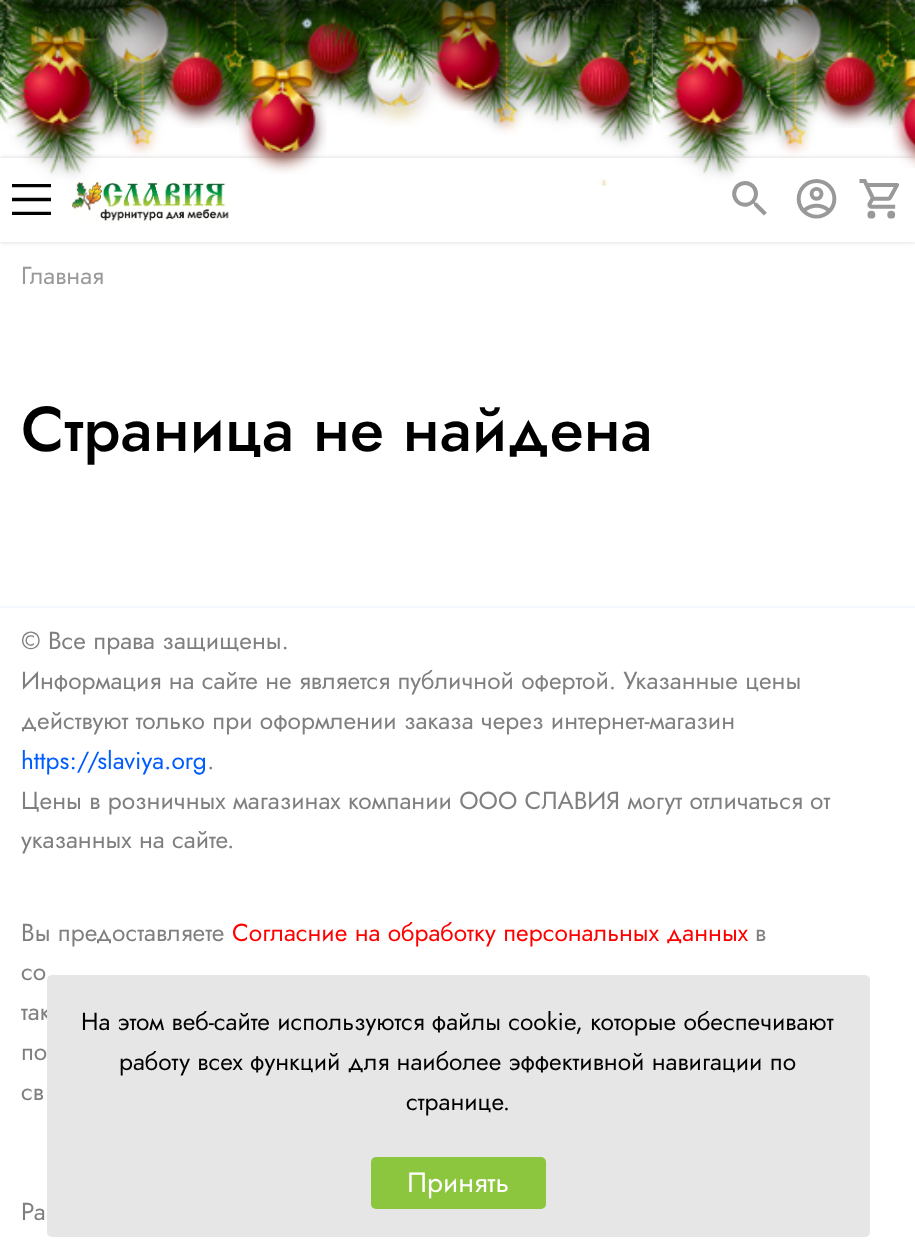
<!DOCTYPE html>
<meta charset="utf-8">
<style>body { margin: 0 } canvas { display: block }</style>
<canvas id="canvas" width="915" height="1245"></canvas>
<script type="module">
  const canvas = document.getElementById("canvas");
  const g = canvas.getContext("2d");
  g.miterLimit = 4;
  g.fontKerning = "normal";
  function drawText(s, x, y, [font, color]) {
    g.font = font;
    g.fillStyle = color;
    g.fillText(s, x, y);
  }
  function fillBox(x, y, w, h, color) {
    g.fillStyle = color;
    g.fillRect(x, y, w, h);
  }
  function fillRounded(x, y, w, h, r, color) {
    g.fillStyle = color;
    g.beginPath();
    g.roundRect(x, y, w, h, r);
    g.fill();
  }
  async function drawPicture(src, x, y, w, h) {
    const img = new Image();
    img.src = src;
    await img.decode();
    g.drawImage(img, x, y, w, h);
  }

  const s1 = ["24.5px Jost", "#999999"];
  const s2 = ["500 63px Jost", "#000000"];
  const s3 = ["24.5px Jost", "#7F7F7F"];
  const s4 = ["24.5px Jost", "#000000"];
  const s5 = ["28px Jost", "#FFFFFF"];
  const s6 = ["24.5px Jost", "#005CFF"];
  const s7 = ["24.5px Jost", "#FF0000"];

  fillBox(0, 0, 915, 1245, "#FFFFFF");
  g.save();
  g.beginPath();
  g.moveTo(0, 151);
  g.lineTo(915, 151);
  g.lineTo(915, 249);
  g.lineTo(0, 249);
  g.closePath();
  g.moveTo(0, 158);
  g.lineTo(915, 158);
  g.lineTo(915, 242);
  g.lineTo(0, 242);
  g.closePath();
  g.clip("evenodd");
  g.fillStyle = "#D3D3D3";
  g.filter = "blur(2px)";
  g.beginPath();
  g.rect(0, 158, 915, 84);
  g.fill();
  g.filter = "none";
  g.restore();
  g.save();
  g.beginPath();
  g.rect(12, 184, 39, 31);
  g.clip();
  g.beginPath();
  g.moveTo(12, 185.5);
  g.lineTo(51, 185.5);
  g.strokeStyle = "#000000";
  g.lineWidth = 3.5;
  g.stroke();
  g.restore();
  await drawPicture("pic27.png", 71, 181, 158, 40);
  await drawPicture("pic28.png", 732, 181, 35, 35);
  await drawPicture("pic29.png", 796, 179, 41, 40);
  await drawPicture("pic30.png", 859, 179, 40, 40);
  await drawPicture("pic5.png", 0, 0, 915, 186);
  await drawPicture("pic7.png", 11, 0, 91, 143);
  await drawPicture("pic6.png", 0, 0, 44, 124);
  await drawPicture("pic9.png", 95, 0, 85, 82);
  await drawPicture("pic8.png", 43, 0, 107, 47);
  await drawPicture("pic10.png", 239, 0, 88, 174);
  await drawPicture("pic11.png", 297, 0, 71, 94);
  await drawPicture("pic17.png", 357, 10, 79, 116);
  await drawPicture("pic12.png", 309, 0, 50, 54);
  await drawPicture("pic14.png", 426, 0, 85, 111);
  await drawPicture("pic13.png", 358, 0, 89, 88);
  await drawPicture("pic15.png", 503, 0, 80, 86);
  await drawPicture("pic16.png", 160, 16, 72, 112);
  await drawPicture("pic20.png", 568, 17, 73, 111);
  await drawPicture("pic18.png", 506, 0, 137, 49);
  await drawPicture("pic19.png", 642, 0, 11, 121);
  await drawPicture("pic22.png", 664, 0, 91, 143);
  await drawPicture("pic21.png", 652, 0, 45, 124);
  await drawPicture("pic24.png", 747, 0, 86, 82);
  await drawPicture("pic23.png", 696, 0, 107, 47);
  await drawPicture("pic25.png", 813, 16, 72, 112);
  await drawPicture("pic26.png", 892, 57, 23, 111);
  g.fillStyle = "rgba(0, 0, 0, 0.75)";
  g.filter = "blur(26px)";
  g.beginPath();
  g.rect(0, -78, 915, 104);
  g.fill();
  g.filter = "none";
  await drawPicture("pic1.png", 682, 0, 20, 17);
  await drawPicture("pic2.png", 758, 0, 16, 3);
  await drawPicture("pic3.png", 783, 0, 16, 6);
  await drawPicture("pic4.png", 300, 17, 13, 12);
  g.beginPath();
  g.moveTo(12, 199.5);
  g.lineTo(51, 199.5);
  g.strokeStyle = "#000000";
  g.lineWidth = 3.5;
  g.stroke();
  g.save();
  g.beginPath();
  g.rect(12, 184, 39, 31);
  g.clip();
  g.beginPath();
  g.moveTo(12, 213.5);
  g.lineTo(51, 213.5);
  g.stroke();
  g.restore();
  drawText("Главная", 21, 284, s1);
  drawText("Страница не найдена", 21, 451, s2);
  drawText("так", 21, 1020, s3);
  fillRounded(47, 975, 823, 262, 5, "#E6E6E6");
  drawText("На этом веб-сайте используются файлы cookie, которые обеспечивают", 81, 1030, s4);
  drawText("работу всех функций для наиболее эффективной навигации по", 119, 1070, s4);
  drawText("странице.", 406, 1110, s4);
  fillRounded(371, 1157, 175, 52, 5, "#8CC63F");
  drawText("Принять", 407, 1192, s5);
  fillBox(0, 606, 915, 2, "#F4F7FE");
  drawText("© Все права защищены.", 21, 649, s3);
  drawText("Информация на сайте не является публичной офертой. Указанные цены", 21, 689, s3);
  drawText("действуют только при оформлении заказа через интернет-магазин", 21, 729, s3);
  drawText("https://slaviya.org", 21, 769, s6);
  drawText(".", 207, 769, s3);
  drawText("Цены в розничных магазинах компании ООО СЛАВИЯ могут отличаться от", 21, 809, s3);
  drawText("указанных на сайте.", 21, 848, s3);
  drawText("Вы предоставляете", 21, 941, s3);
  drawText("Согласние на обработку персональных данных", 232, 941, s7);
  drawText("в", 755, 941, s3);
  drawText("со", 21, 980, s3);
  drawText("по", 21, 1060, s3);
  drawText("св", 21, 1100, s3);
  drawText("Ра", 21, 1220, s3);
</script>
